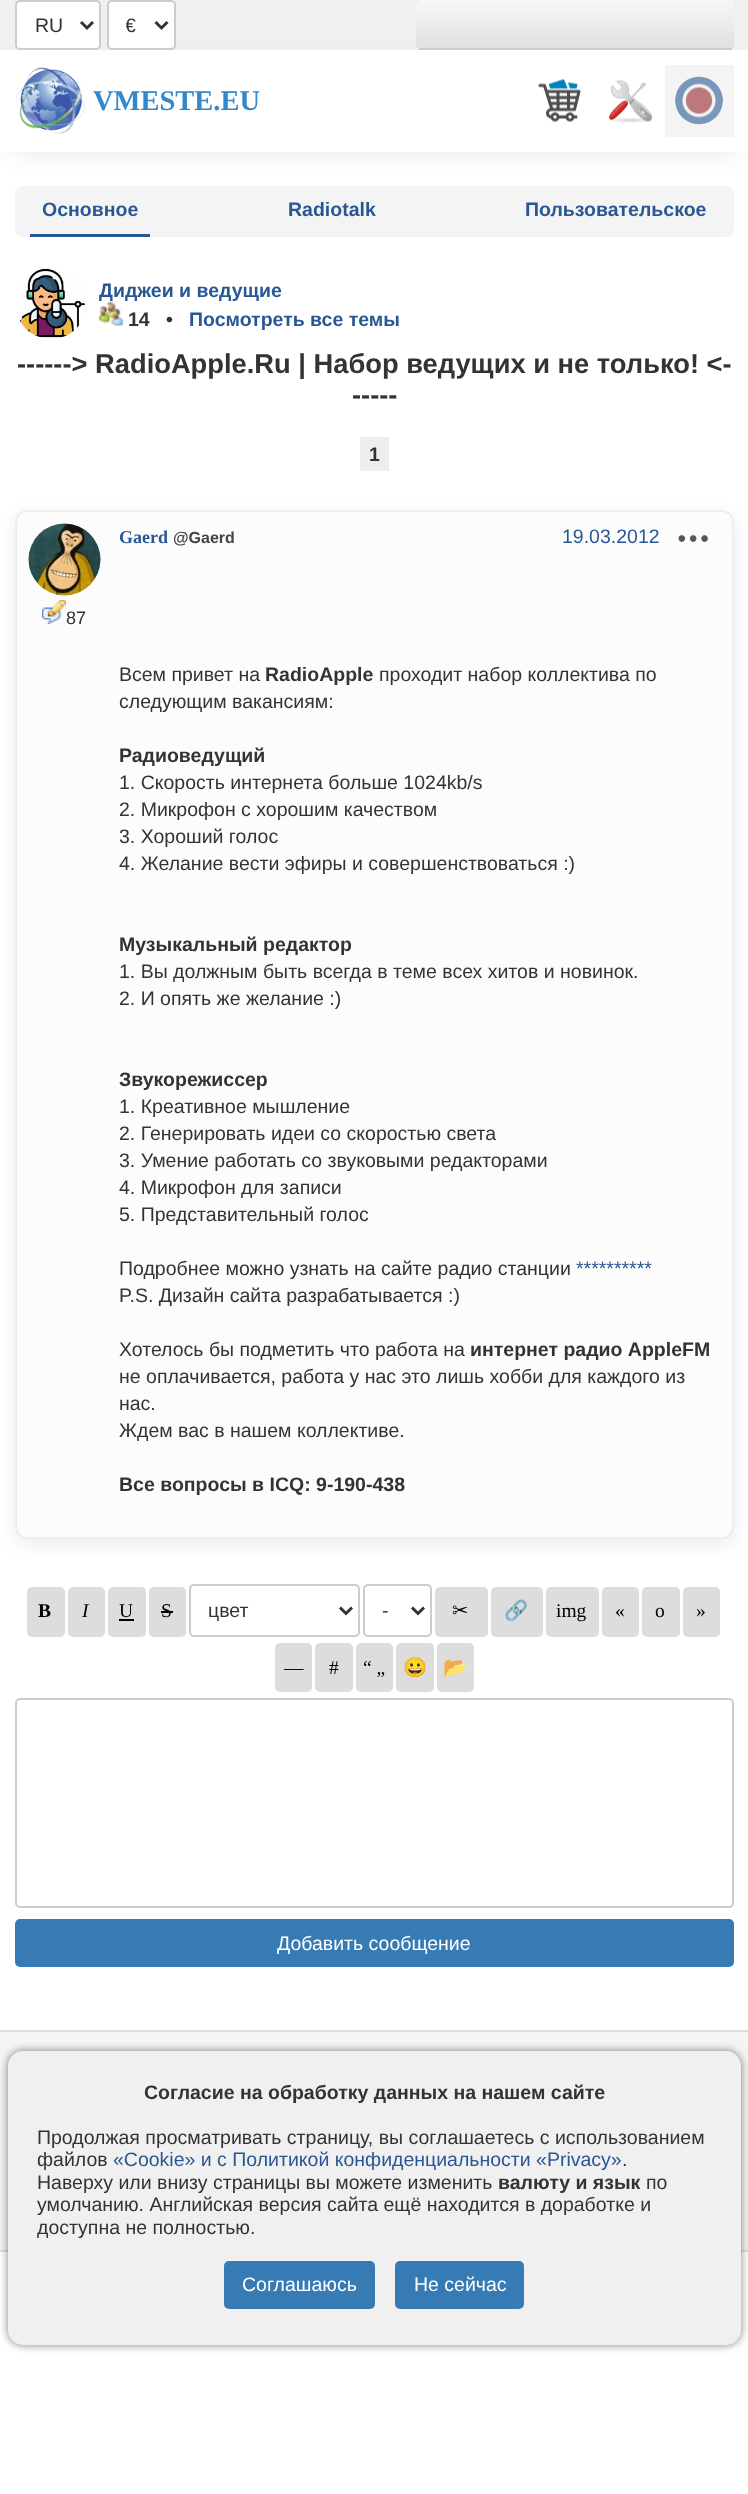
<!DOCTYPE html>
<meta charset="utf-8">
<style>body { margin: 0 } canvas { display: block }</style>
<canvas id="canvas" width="748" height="2494"></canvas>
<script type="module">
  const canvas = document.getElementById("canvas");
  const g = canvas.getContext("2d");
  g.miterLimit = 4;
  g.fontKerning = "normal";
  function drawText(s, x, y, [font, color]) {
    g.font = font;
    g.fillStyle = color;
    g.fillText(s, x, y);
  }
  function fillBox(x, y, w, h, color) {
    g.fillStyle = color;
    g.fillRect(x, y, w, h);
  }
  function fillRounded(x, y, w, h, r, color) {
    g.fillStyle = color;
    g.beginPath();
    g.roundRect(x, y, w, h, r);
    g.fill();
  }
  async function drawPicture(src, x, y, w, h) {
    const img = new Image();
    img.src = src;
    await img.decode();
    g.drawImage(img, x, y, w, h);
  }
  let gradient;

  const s1 = ["19.5px Liberation Sans", "#333333"];
  const s2 = ["bold 28.5px Liberation Serif", "#3388CC"];
  const s3 = ["bold 19.5px Liberation Sans", "#295794"];
  const s4 = ["bold 19.5px Liberation Sans", "#333333"];
  const s5 = ["bold 27.3px Liberation Sans", "#333333"];
  const s6 = ["18px Liberation Sans", "#333333"];
  const s7 = ["bold 18px Liberation Serif", "#295794"];
  const s8 = ["bold 16px Liberation Sans", "#444444"];
  const s9 = ["19.5px Liberation Sans", "#295794"];
  const s10 = ["bold 19.5px Liberation Serif", "#000000"];
  const s11 = ["italic 19.5px Liberation Serif", "#000000"];
  const s12 = ["19.5px Liberation Serif", "#000000"];
  const s13 = ["19.5px DejaVu Sans", "#000000"];
  const s14 = ["19.5px Noto Color Emoji", "#000000"];
  const s15 = ["19.5px Liberation Sans", "#FFFFFF"];

  fillBox(0, 0, 748, 2494, "#FFFFFF");
  fillBox(0, 0, 748, 50, "#F0F0F0");
  g.fillStyle = "rgba(0, 0, 0, 0.2)";
  g.filter = "blur(15px)";
  g.beginPath();
  g.rect(15, 72, 719, 72);
  g.fill();
  g.filter = "none";
  g.fillStyle = "#FFFFFF";
  g.beginPath();
  g.roundRect(16, 1, 84, 48, 4);
  g.fill();
  g.strokeStyle = "#CCCCCC";
  g.lineWidth = 2;
  g.stroke();
  g.beginPath();
  g.moveTo(81, 22);
  g.lineTo(87, 28);
  g.lineTo(93, 22);
  g.strokeStyle = "#333333";
  g.lineWidth = 3;
  g.stroke();
  drawText("RU", 35, 32, s1);
  g.fillStyle = "#FFFFFF";
  g.beginPath();
  g.roundRect(108, 1, 67, 48, 4);
  g.fill();
  g.strokeStyle = "#CCCCCC";
  g.lineWidth = 2;
  g.stroke();
  g.beginPath();
  g.moveTo(155.5, 22);
  g.lineTo(161.5, 28);
  g.lineTo(167.5, 22);
  g.strokeStyle = "#333333";
  g.lineWidth = 3;
  g.stroke();
  g.save();
  g.beginPath();
  g.rect(126, 12, 12, 26);
  g.clip();
  drawText("€", 125, 32, s1);
  g.restore();
  g.save();
  g.beginPath();
  g.roundRect(416, 0, 318, 50, 5);
  g.clip();
  gradient = g.createLinearGradient(575, 0, 575, 48);
  gradient.addColorStop(0, "#F8F8F8");
  gradient.addColorStop(1, "#E0E0E0");
  g.fillStyle = gradient;
  g.beginPath();
  g.roundRect(416, 0, 318, 48, [5, 5, 0, 0]);
  g.fill();
  gradient = g.createLinearGradient(575, 48, 575, 96);
  gradient.addColorStop(0, "#F8F8F8");
  gradient.addColorStop(1, "#E0E0E0");
  g.fillStyle = gradient;
  g.fillRect(416, 48, 318, 2);
  g.restore();
  fillBox(419, 48, 313, 2, "#CCCCCC");
  fillBox(0, 50, 748, 102, "#FFFFFF");
  await drawPicture("pic1.png", 16, 67, 70, 67);
  drawText("VMESTE.EU", 93, 110, s2);
  await drawPicture("pic2.png", 538, 79, 43, 43);
  await drawPicture("pic3.png", 609, 80, 44, 43);
  fillBox(665, 65, 69, 72, "#F4F4F4");
  await drawPicture("pic4.png", 675, 76, 48, 49);
  fillRounded(15, 186, 719, 51, 8, "#F4F4F4");
  fillBox(30, 234, 120, 3, "#295794");
  drawText("Основное", 42, 216, s3);
  drawText("Radiotalk", 288, 216, s3);
  drawText("Пользовательское", 525, 216, s3);
  await drawPicture("pic5.png", 19, 268, 68, 71);
  drawText("Диджеи и ведущие", 99, 297, s3);
  await drawPicture("pic6.png", 99, 301, 24, 25);
  drawText("14   •", 128, 326, s4);
  drawText("Посмотреть все темы", 189, 326, s3);
  drawText("------> RadioApple.Ru | Набор ведущих и не только! <-", 17, 373, s5);
  drawText("-----", 352, 404, s5);
  fillBox(360, 437, 29, 34, "#EEEEEE");
  drawText("1", 369, 461, s4);
  g.fillStyle = "rgba(0, 16, 64, 0.08)";
  g.filter = "blur(9px)";
  g.beginPath();
  g.roundRect(15, 516, 719, 1029, 12);
  g.fill();
  g.filter = "none";
  g.fillStyle = "#FCFCFC";
  g.beginPath();
  g.roundRect(16, 511, 717, 1027, 11);
  g.fill();
  g.strokeStyle = "#EEEEEE";
  g.lineWidth = 2;
  g.stroke();
  await drawPicture("pic7.png", 28, 523, 73, 73);
  await drawPicture("pic8.png", 42, 600, 24, 24);
  drawText("87", 66, 624, s6);
  drawText("Gaerd", 119, 543, s7);
  drawText("@Gaerd", 173, 543, s8);
  drawText("19.03.2012", 562, 543, s9);
  await drawPicture("pic9.png", 678, 535, 30, 8);
  drawText("Всем привет на", 119, 681, s1);
  drawText("RadioApple", 265, 681, s4);
  drawText("проходит набор коллектива по", 379, 681, s1);
  drawText("следующим вакансиям:", 119, 708, s1);
  drawText("Радиоведущий", 119, 762, s4);
  drawText("1. Скорость интернета больше 1024kb/s", 119, 789, s1);
  drawText("2. Микрофон с хорошим качеством", 119, 816, s1);
  drawText("3. Хороший голос", 119, 843, s1);
  drawText("4. Желание вести эфиры и совершенствоваться :)", 119, 870, s1);
  drawText("Музыкальный редактор", 119, 951, s4);
  drawText("1. Вы должным быть всегда в теме всех хитов и новинок.", 119, 978, s1);
  drawText("2. И опять же желание :)", 119, 1005, s1);
  drawText("Звукорежиссер", 119, 1086, s4);
  drawText("1. Креативное мышление", 119, 1113, s1);
  drawText("2. Генерировать идеи со скоростью света", 119, 1140, s1);
  drawText("3. Умение работать со звуковыми редакторами", 119, 1167, s1);
  drawText("4. Микрофон для записи", 119, 1194, s1);
  drawText("5. Представительный голос", 119, 1221, s1);
  drawText("Подробнее можно узнать на сайте радио станции", 119, 1275, s1);
  drawText("**********", 576, 1275, s9);
  drawText("P.S. Дизайн сайта разрабатывается :)", 119, 1302, s1);
  drawText("Хотелось бы подметить что работа на", 119, 1356, s1);
  drawText("интернет радио AppleFM", 470, 1356, s4);
  drawText("не оплачивается, работа у нас это лишь хобби для каждого из", 119, 1383, s1);
  drawText("нас.", 119, 1410, s1);
  drawText("Ждем вас в нашем коллективе.", 119, 1437, s1);
  drawText("Все вопросы в ICQ: 9-190-438", 119, 1491, s4);
  fillRounded(27, 1587, 38, 50, 5, "#DDDDDD");
  drawText("B", 38, 1617, s10);
  fillRounded(68, 1587, 37, 50, 5, "#DDDDDD");
  drawText("I", 82, 1617, s11);
  fillRounded(108, 1587, 38, 50, 5, "#DDDDDD");
  drawText("U", 119, 1617, s12);
  fillBox(119, 1619, 15, 2, "#000000");
  fillRounded(149, 1587, 37, 50, 5, "#DDDDDD");
  drawText("S", 161, 1617, s12);
  fillBox(161, 1611, 12, 2, "#000000");
  g.beginPath();
  g.roundRect(190, 1585, 169, 51, 4);
  g.strokeStyle = "#CCCCCC";
  g.stroke();
  g.beginPath();
  g.moveTo(340, 1607.5);
  g.lineTo(346, 1613.5);
  g.lineTo(352, 1607.5);
  g.strokeStyle = "#333333";
  g.lineWidth = 3;
  g.stroke();
  drawText("цвет", 208, 1617, s1);
  g.beginPath();
  g.roundRect(364, 1585, 67, 51, 4);
  g.strokeStyle = "#CCCCCC";
  g.lineWidth = 2;
  g.stroke();
  g.beginPath();
  g.moveTo(412, 1607.5);
  g.lineTo(418, 1613.5);
  g.lineTo(424, 1607.5);
  g.strokeStyle = "#333333";
  g.lineWidth = 3;
  g.stroke();
  drawText("-", 382, 1617, s1);
  fillRounded(435, 1587, 53, 50, 5, "#DDDDDD");
  drawText("✂", 452, 1617, s13);
  fillRounded(491, 1587, 52, 50, 5, "#DDDDDD");
  drawText("🔗", 504, 1617, s14);
  fillRounded(546, 1587, 53, 50, 5, "#DDDDDD");
  drawText("img", 556, 1617, s12);
  fillRounded(602, 1587, 37, 50, 5, "#DDDDDD");
  drawText("«", 615, 1617, s12);
  fillRounded(642, 1587, 38, 50, 5, "#DDDDDD");
  drawText("o", 655, 1617, s12);
  fillRounded(683, 1587, 37, 50, 5, "#DDDDDD");
  drawText("»", 696, 1617, s12);
  fillRounded(275, 1643, 37, 49, 5, "#DDDDDD");
  drawText("—", 284, 1674, s12);
  fillRounded(315, 1643, 38, 49, 5, "#DDDDDD");
  drawText("#", 329, 1674, s12);
  fillRounded(356, 1643, 37, 49, 5, "#DDDDDD");
  drawText("“ „", 363, 1674, s12);
  fillRounded(396, 1643, 38, 49, 5, "#DDDDDD");
  drawText("😀", 403, 1674, s14);
  fillRounded(437, 1643, 37, 49, 5, "#DDDDDD");
  drawText("📂", 443, 1674, s14);
  g.beginPath();
  g.roundRect(16, 1699, 717, 208, 4);
  g.strokeStyle = "#CCCCCC";
  g.lineWidth = 2;
  g.stroke();
  fillRounded(15, 1919, 719, 48, 5, "#377BB5");
  drawText("Добавить сообщение", 277, 1950, s15);
  fillBox(0, 2032, 748, 218, "#F4F4F4");
  fillBox(0, 2030, 748, 2, "#DDDDDD");
  fillBox(0, 2250, 748, 2, "#DDDDDD");
  g.fillStyle = "rgba(0, 0, 0, 0.5)";
  g.filter = "blur(4px)";
  g.beginPath();
  g.roundRect(8, 2051, 733, 294, 15);
  g.fill();
  g.filter = "none";
  fillRounded(8, 2051, 733, 294, 15, "#F0F0F0");
  drawText("Согласие на обработку данных на нашем сайте", 144, 2099, s4);
  drawText("Продолжая просматривать страницу, вы соглашаетесь с использованием", 37, 2144, s1);
  drawText("файлов", 37, 2166, s1);
  drawText("«Cookie» и с Политикой конфиденциальности «Privacy»", 113, 2166, s9);
  drawText(".", 622, 2166, s1);
  drawText("Наверху или внизу страницы вы можете изменить", 37, 2189, s1);
  drawText("валюту и язык", 498, 2189, s4);
  drawText("по", 646, 2189, s1);
  drawText("умолчанию. Английская версия сайта ещё находится в доработке и", 37, 2211, s1);
  drawText("доступна не полностью.", 37, 2234, s1);
  fillRounded(224, 2261, 151, 48, 5, "#377BB5");
  drawText("Соглашаюсь", 242, 2291, s15);
  fillRounded(395, 2261, 129, 48, 5, "#377BB5");
  drawText("Не сейчас", 414, 2291, s15);
</script>
